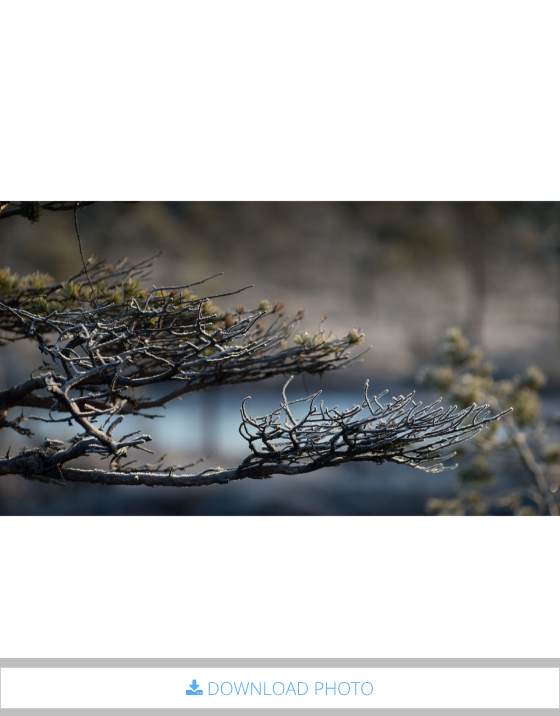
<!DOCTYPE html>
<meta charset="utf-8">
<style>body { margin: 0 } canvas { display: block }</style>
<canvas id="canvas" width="560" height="716"></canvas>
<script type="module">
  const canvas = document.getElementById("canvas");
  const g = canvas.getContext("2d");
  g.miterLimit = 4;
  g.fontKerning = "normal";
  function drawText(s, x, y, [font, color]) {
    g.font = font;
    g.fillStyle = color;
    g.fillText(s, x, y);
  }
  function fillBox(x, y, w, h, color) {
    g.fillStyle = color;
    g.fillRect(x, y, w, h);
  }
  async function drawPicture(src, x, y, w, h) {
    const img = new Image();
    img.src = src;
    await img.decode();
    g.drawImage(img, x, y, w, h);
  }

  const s1 = ["300 18px Open Sans", "#55ACEE"];

  fillBox(0, 0, 560, 716, "#FFFFFF");
  await drawPicture("pic1.png", 0, 200, 560, 317);
  fillBox(0, 658, 560, 58, "#BFBFBF");
  g.fillStyle = "#FFFFFF";
  g.beginPath();
  g.rect(0.5, 667.5, 559, 41);
  g.fill();
  g.strokeStyle = "#CCCCCC";
  g.stroke();
  await drawPicture("pic2.png", 186, 679, 17, 16);
  drawText("DOWNLOAD PHOTO", 207, 695, s1);
</script>
